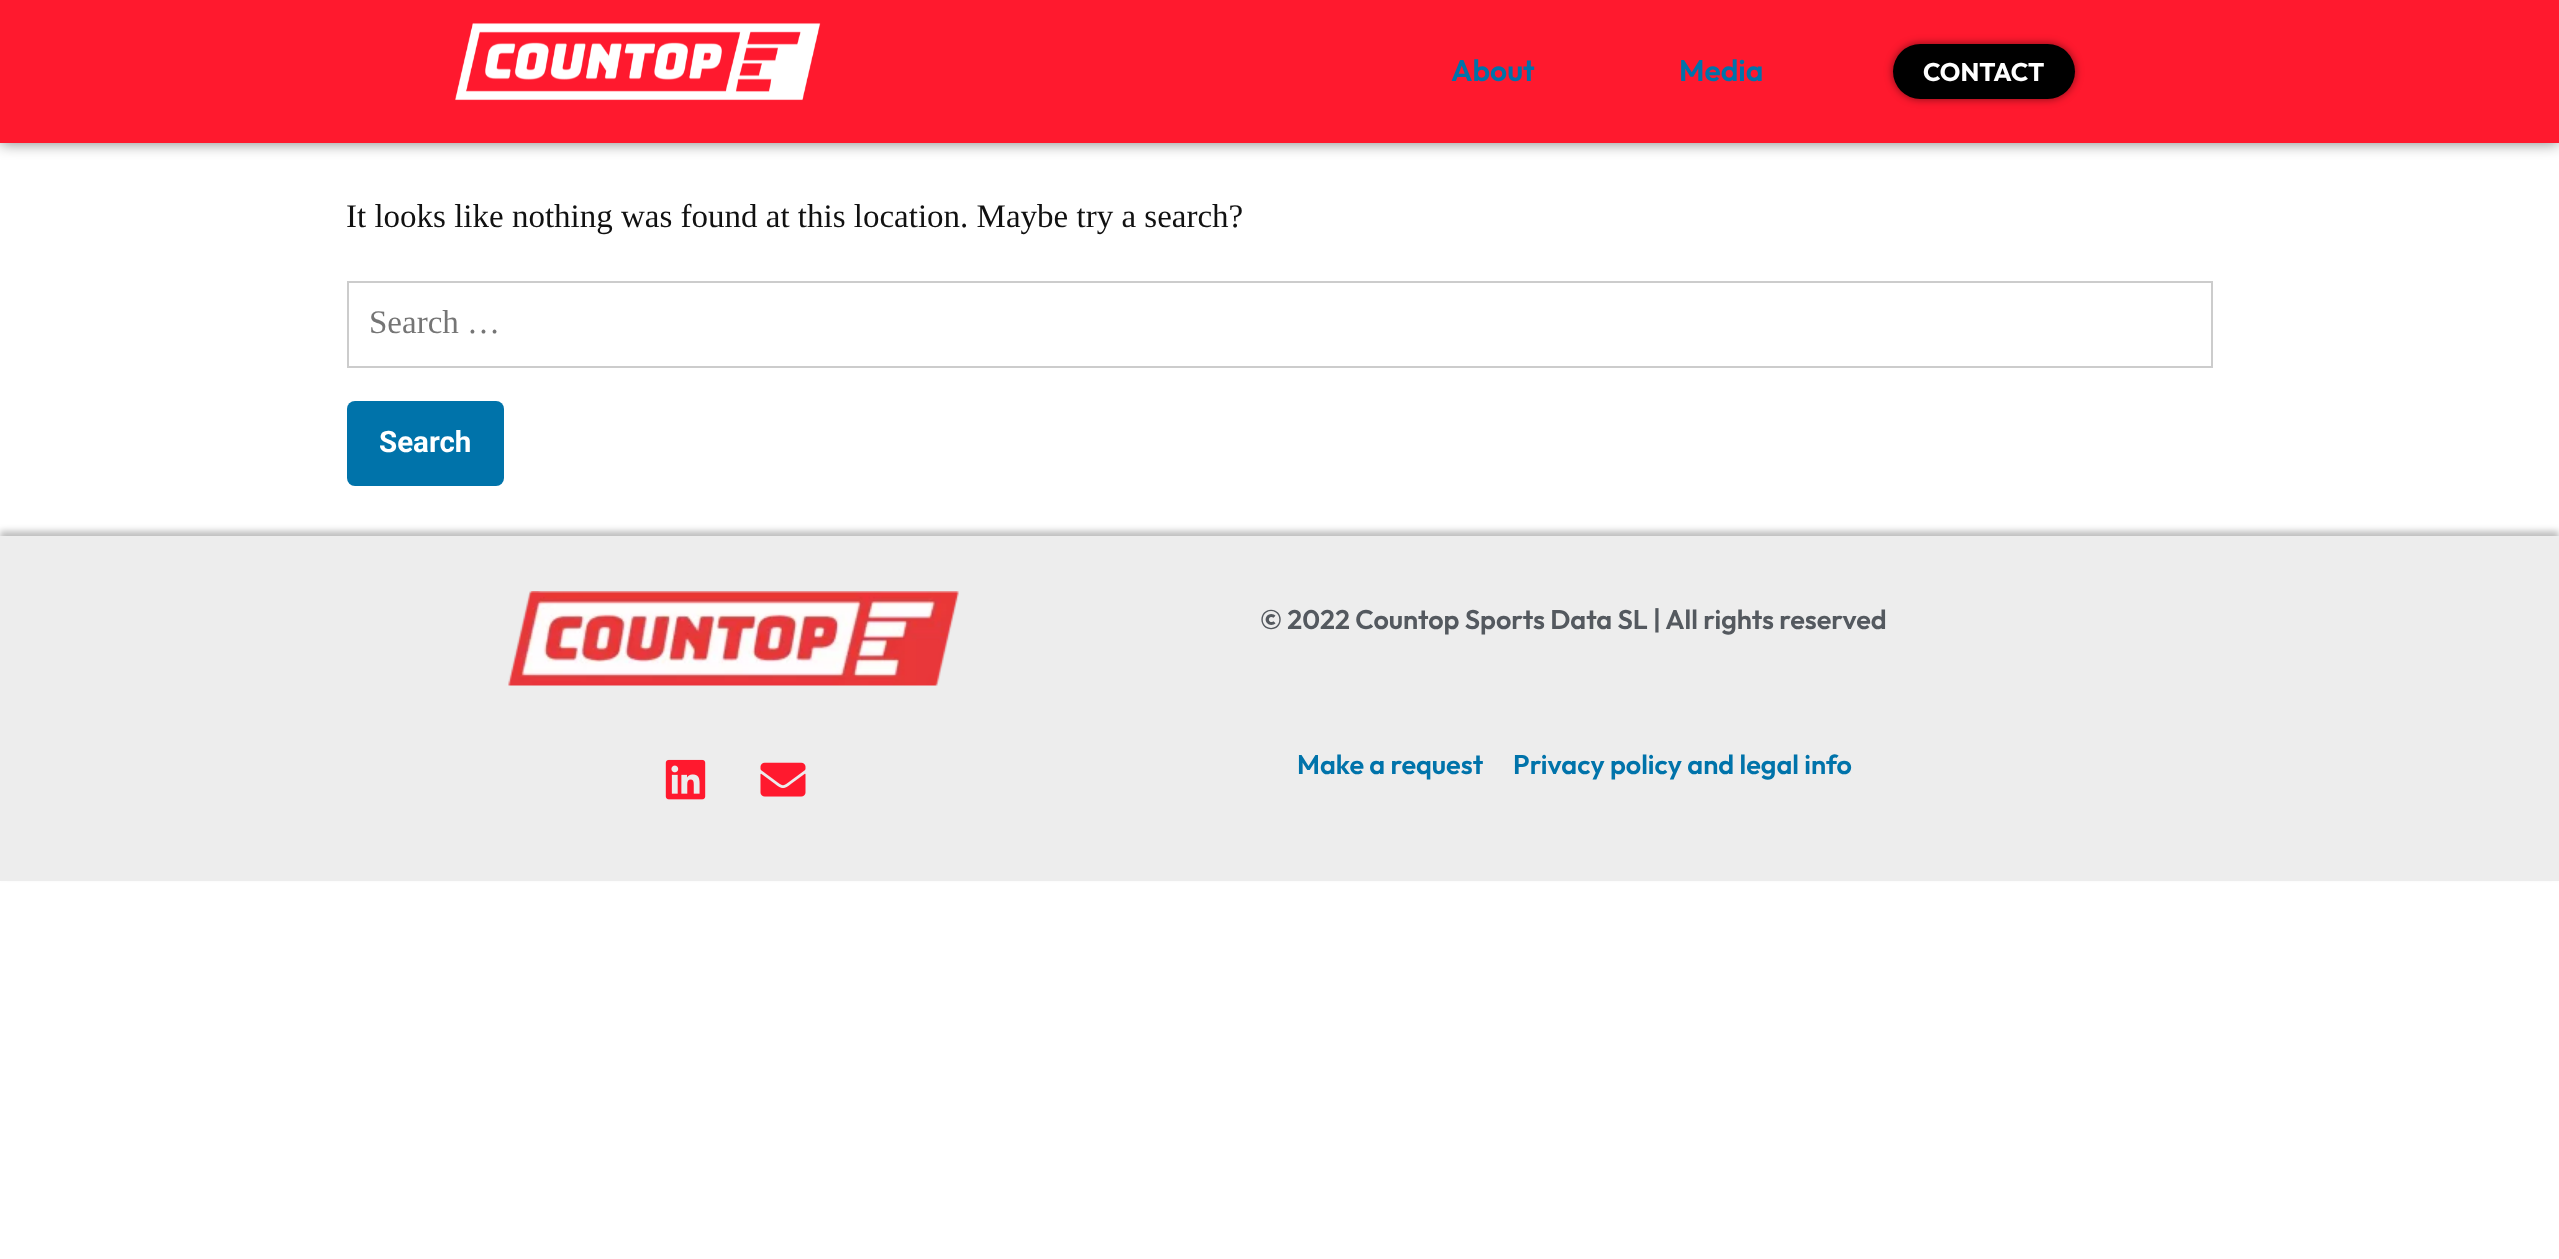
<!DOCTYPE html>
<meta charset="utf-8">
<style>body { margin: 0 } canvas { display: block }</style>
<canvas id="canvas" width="2559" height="1259"></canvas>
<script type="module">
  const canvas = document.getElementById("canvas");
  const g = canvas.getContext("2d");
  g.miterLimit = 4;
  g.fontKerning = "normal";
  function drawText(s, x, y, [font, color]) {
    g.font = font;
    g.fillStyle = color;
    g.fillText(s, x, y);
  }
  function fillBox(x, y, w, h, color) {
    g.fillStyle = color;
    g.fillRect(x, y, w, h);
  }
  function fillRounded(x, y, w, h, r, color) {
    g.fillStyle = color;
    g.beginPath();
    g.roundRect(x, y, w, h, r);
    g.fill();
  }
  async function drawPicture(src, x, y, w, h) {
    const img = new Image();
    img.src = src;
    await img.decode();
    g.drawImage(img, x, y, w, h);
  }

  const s1 = ["600 30px Outfit", "#0073AA"];
  const s2 = ["bold 25.5px Outfit", "#FFFFFF"];
  const s3 = ["33px Liberation Serif", "#111111"];
  const s4 = ["33px Liberation Serif", "#757575"];
  const s5 = ["bold 29.5px Roboto", "#FFFFFF"];
  const s6 = ["600 27px Outfit", "#54595F"];
  const s7 = ["600 27px Outfit", "#0073AA"];

  fillBox(0, 0, 2559, 1259, "#FFFFFF");
  g.fillStyle = "rgba(0, 0, 0, 0.5)";
  g.filter = "blur(7.5px)";
  g.beginPath();
  g.rect(0, 0, 2559, 143);
  g.fill();
  g.filter = "none";
  fillBox(0, 0, 2559, 143, "#FF192E");
  await drawPicture("pic1.png", 455, 23, 366, 78);
  drawText("About", 1451, 81, s1);
  drawText("Media", 1679, 81, s1);
  g.fillStyle = "rgba(0, 0, 0, 0.5)";
  g.filter = "blur(4px)";
  g.beginPath();
  g.roundRect(1893, 44, 182, 55, 27.5);
  g.fill();
  g.filter = "none";
  fillRounded(1893, 44, 182, 55, 27.5, "#000000");
  drawText("CONTACT", 1923, 81, s2);
  drawText("It looks like nothing was found at this location. Maybe try a search?", 346, 227, s3);
  g.strokeStyle = "#CCCCCC";
  g.lineWidth = 2;
  g.strokeRect(348, 282, 1864, 85);
  drawText("Search …", 369, 333, s4);
  fillRounded(347, 401, 157, 85, 8, "#0073AA");
  drawText("Search", 379, 452, s5);
  g.fillStyle = "rgba(0, 0, 0, 0.25)";
  g.filter = "blur(3px)";
  g.beginPath();
  g.rect(0, 531, 2559, 345);
  g.fill();
  g.filter = "none";
  fillBox(0, 536, 2559, 345, "#EDEDED");
  await drawPicture("pic2.png", 508, 591, 451, 95);
  drawText("© 2022 Countop Sports Data SL | All rights reserved", 1260, 629, s6);
  await drawPicture("pic3.png", 665, 759, 41, 41);
  await drawPicture("pic4.png", 760, 762, 46, 35);
  drawText("Make a request", 1297, 774, s7);
  drawText("Privacy policy and legal info", 1513, 774, s7);
</script>
